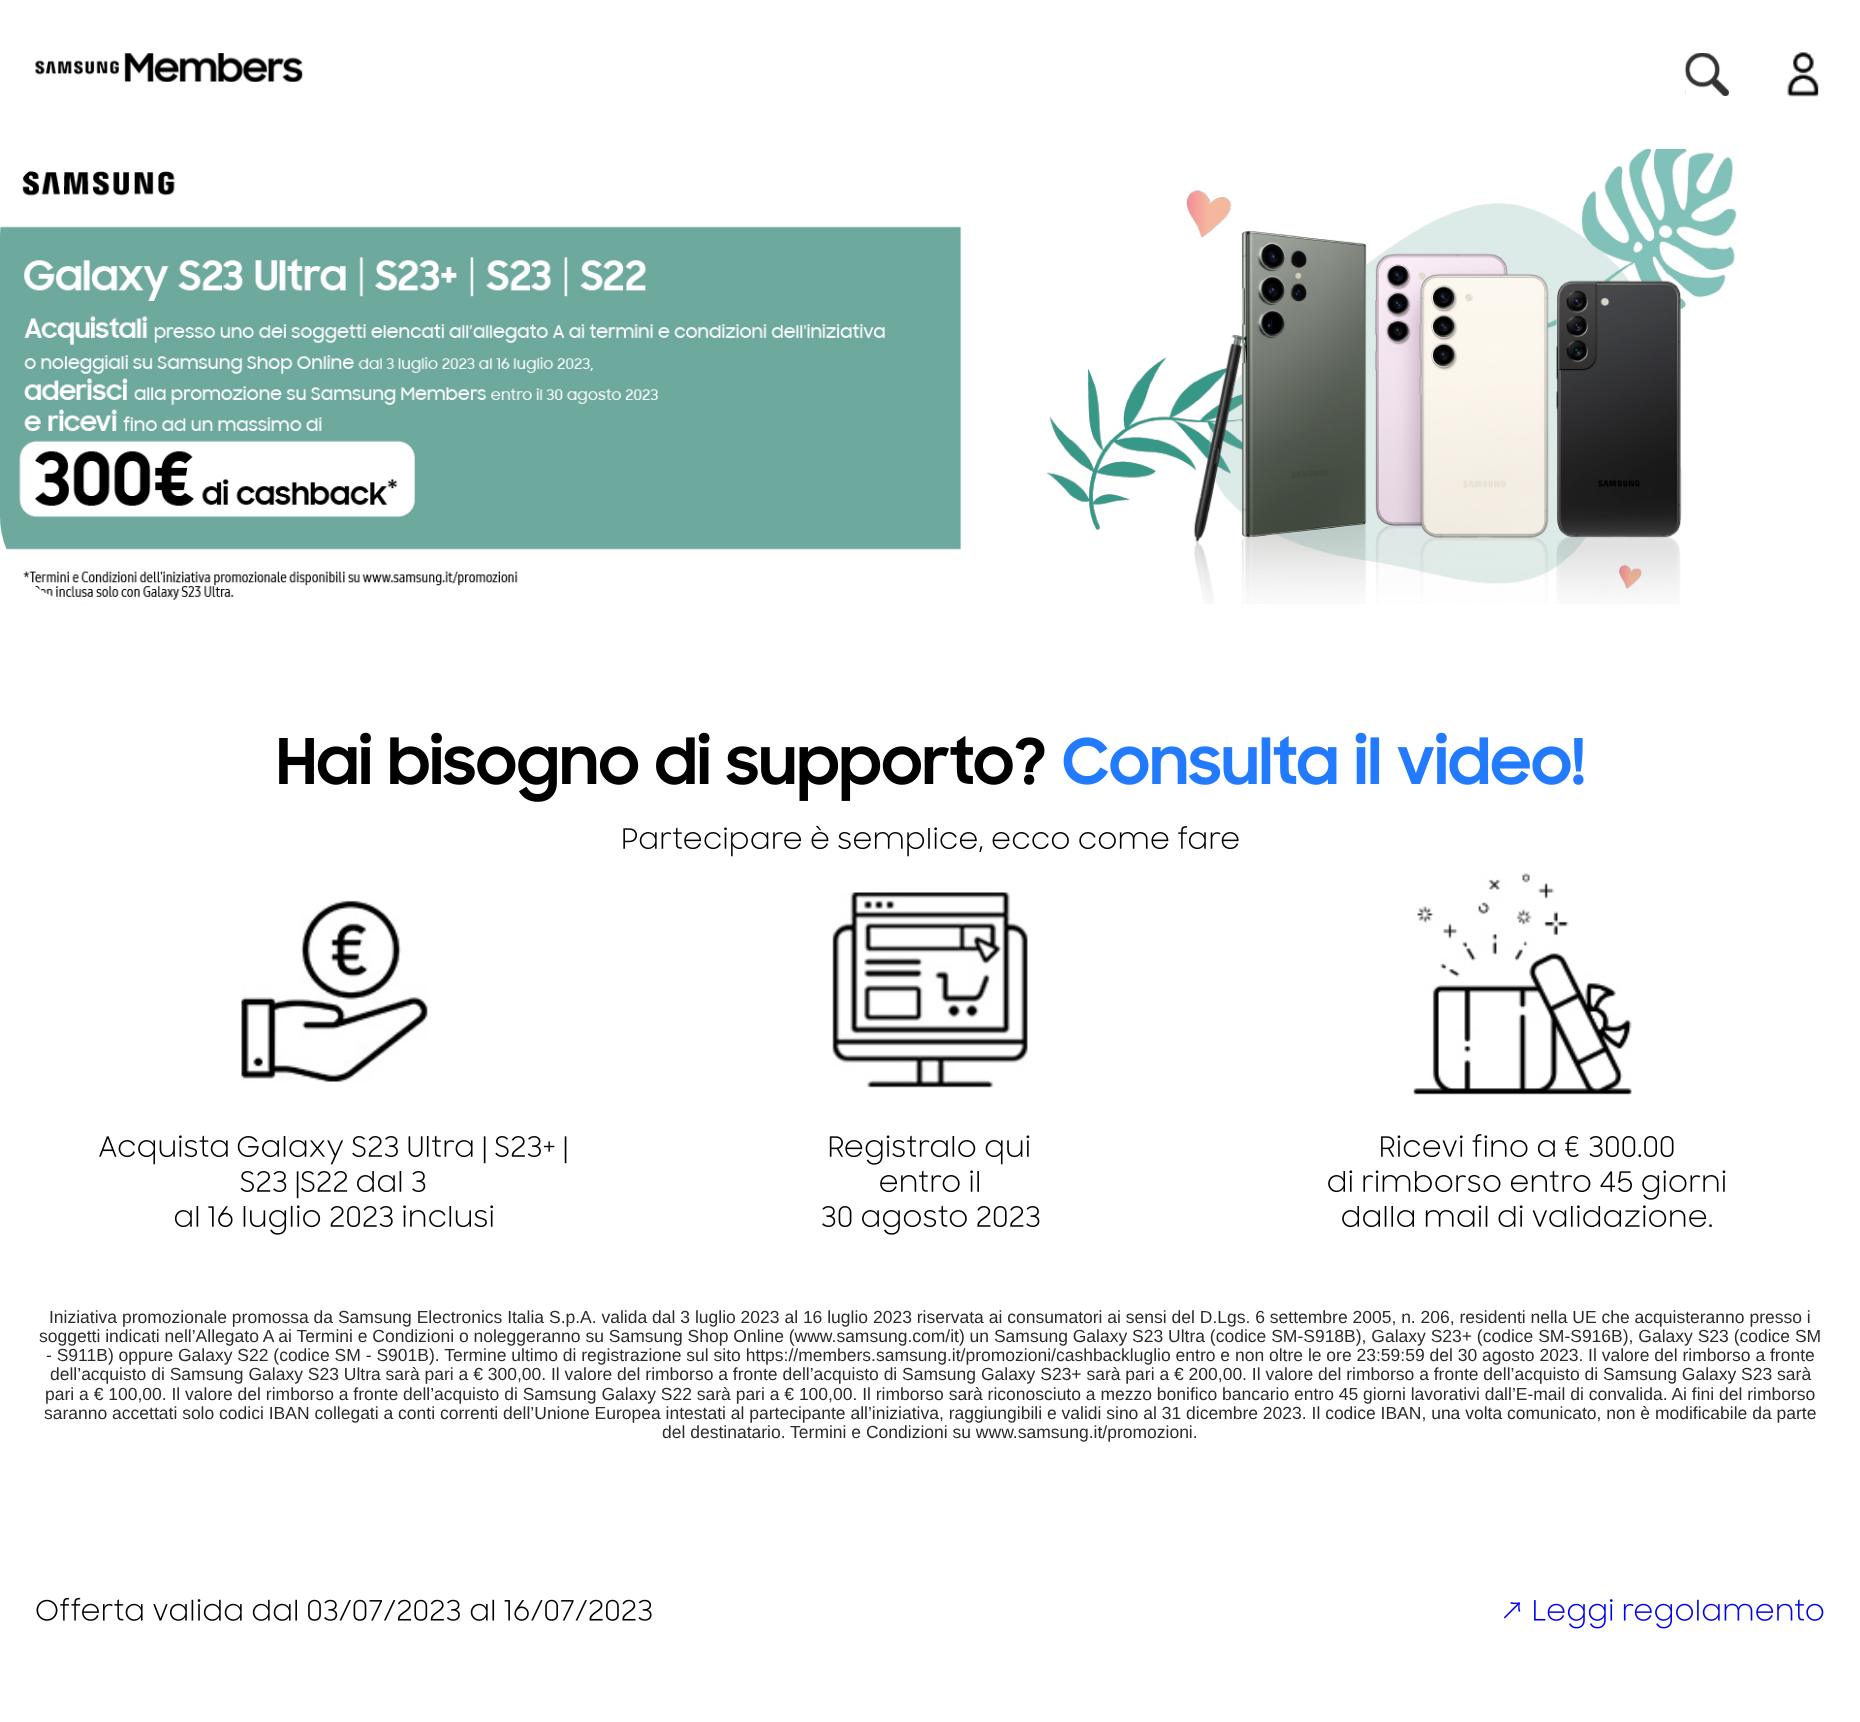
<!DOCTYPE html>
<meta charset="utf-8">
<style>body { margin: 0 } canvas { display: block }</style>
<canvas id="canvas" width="1860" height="1722"></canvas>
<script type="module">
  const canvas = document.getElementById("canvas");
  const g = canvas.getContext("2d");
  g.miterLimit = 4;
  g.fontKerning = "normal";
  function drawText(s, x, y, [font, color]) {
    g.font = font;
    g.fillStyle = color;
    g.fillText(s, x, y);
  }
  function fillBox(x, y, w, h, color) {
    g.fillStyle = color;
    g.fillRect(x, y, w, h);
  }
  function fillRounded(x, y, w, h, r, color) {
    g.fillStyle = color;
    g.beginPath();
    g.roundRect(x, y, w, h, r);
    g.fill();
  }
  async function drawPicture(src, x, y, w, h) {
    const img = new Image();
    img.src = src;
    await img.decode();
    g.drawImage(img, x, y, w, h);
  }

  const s1 = ["17.5px Liberation Sans", "#2C2A2B"];

  fillBox(0, 0, 1860, 1722, "#FFFFFF");
  await drawPicture("pic1.png", 35, 53, 268, 29);
  await drawPicture("pic2.png", 1685, 53, 44, 43);
  await drawPicture("pic3.png", 1787, 52, 32, 45);
  fillRounded(0, 149, 1860, 455, 88, "#F5F5F5");
  await drawPicture("pic4.png", 0, 148, 1860, 456);
  await drawPicture("pic5.png", 279, 732, 766, 70);
  await drawPicture("pic6.png", 1063, 732, 521, 53);
  await drawPicture("pic7.png", 623, 825, 616, 32);
  await drawPicture("pic8.png", 241, 900, 187, 182);
  await drawPicture("pic9.png", 99, 1135, 129, 30);
  await drawPicture("pic10.png", 237, 1135, 330, 30);
  await drawPicture("pic11.png", 240, 1171, 108, 28);
  await drawPicture("pic12.png", 357, 1171, 69, 22);
  await drawPicture("pic13.png", 174, 1205, 320, 30);
  await drawPicture("pic14.png", 832, 892, 196, 196);
  await drawPicture("pic15.png", 829, 1135, 201, 30);
  await drawPicture("pic16.png", 880, 1170, 99, 23);
  await drawPicture("pic17.png", 822, 1205, 218, 30);
  await drawPicture("pic18.png", 1413, 872, 219, 223);
  await drawPicture("pic19.png", 1381, 1134, 174, 24);
  await drawPicture("pic20.png", 1565, 1136, 109, 21);
  await drawPicture("pic21.png", 1328, 1170, 398, 30);
  await drawPicture("pic22.png", 1342, 1205, 370, 23);
  drawText("Iniziativa promozionale promossa da Samsung Electronics Italia S.p.A. valida dal 3 luglio 2023 al 16 luglio 2023 riservata ai consumatori ai sensi del D.Lgs. 6 settembre 2005, n. 206, residenti nella UE che acquisteranno presso i", 49, 1323, s1);
  drawText("soggetti indicati nell’Allegato A ai Termini e Condizioni o noleggeranno su Samsung Shop Online (www.samsung.com/it) un Samsung Galaxy S23 Ultra (codice SM-S918B), Galaxy S23+ (codice SM-S916B), Galaxy S23 (codice SM", 39, 1342, s1);
  drawText("- S911B) oppure Galaxy S22 (codice SM - S901B). Termine ultimo di registrazione sul sito https://members.samsung.it/promozioni/cashbackluglio entro e non oltre le ore 23:59:59 del 30 agosto 2023. Il valore del rimborso a fronte", 46, 1361, s1);
  drawText("dell’acquisto di Samsung Galaxy S23 Ultra sarà pari a € 300,00. Il valore del rimborso a fronte dell’acquisto di Samsung Galaxy S23+ sarà pari a € 200,00. Il valore del rimborso a fronte dell’acquisto di Samsung Galaxy S23 sarà", 50, 1380, s1);
  drawText("pari a € 100,00. Il valore del rimborso a fronte dell’acquisto di Samsung Galaxy S22 sarà pari a € 100,00. Il rimborso sarà riconosciuto a mezzo bonifico bancario entro 45 giorni lavorativi dall’E-mail di convalida. Ai fini del rimborso", 45, 1400, s1);
  drawText("saranno accettati solo codici IBAN collegati a conti correnti dell’Unione Europea intestati al partecipante all’iniziativa, raggiungibili e validi sino al 31 dicembre 2023. Il codice IBAN, una volta comunicato, non è modificabile da parte", 44, 1419, s1);
  drawText("del destinatario. Termini e Condizioni su www.samsung.it/promozioni.", 662, 1438, s1);
  await drawPicture("pic23.png", 36, 1597, 261, 24);
  await drawPicture("pic24.png", 308, 1599, 152, 22);
  await drawPicture("pic25.png", 470, 1599, 25, 22);
  await drawPicture("pic26.png", 504, 1599, 148, 22);
  await drawPicture("pic27.png", 1503, 1599, 321, 30);
</script>
